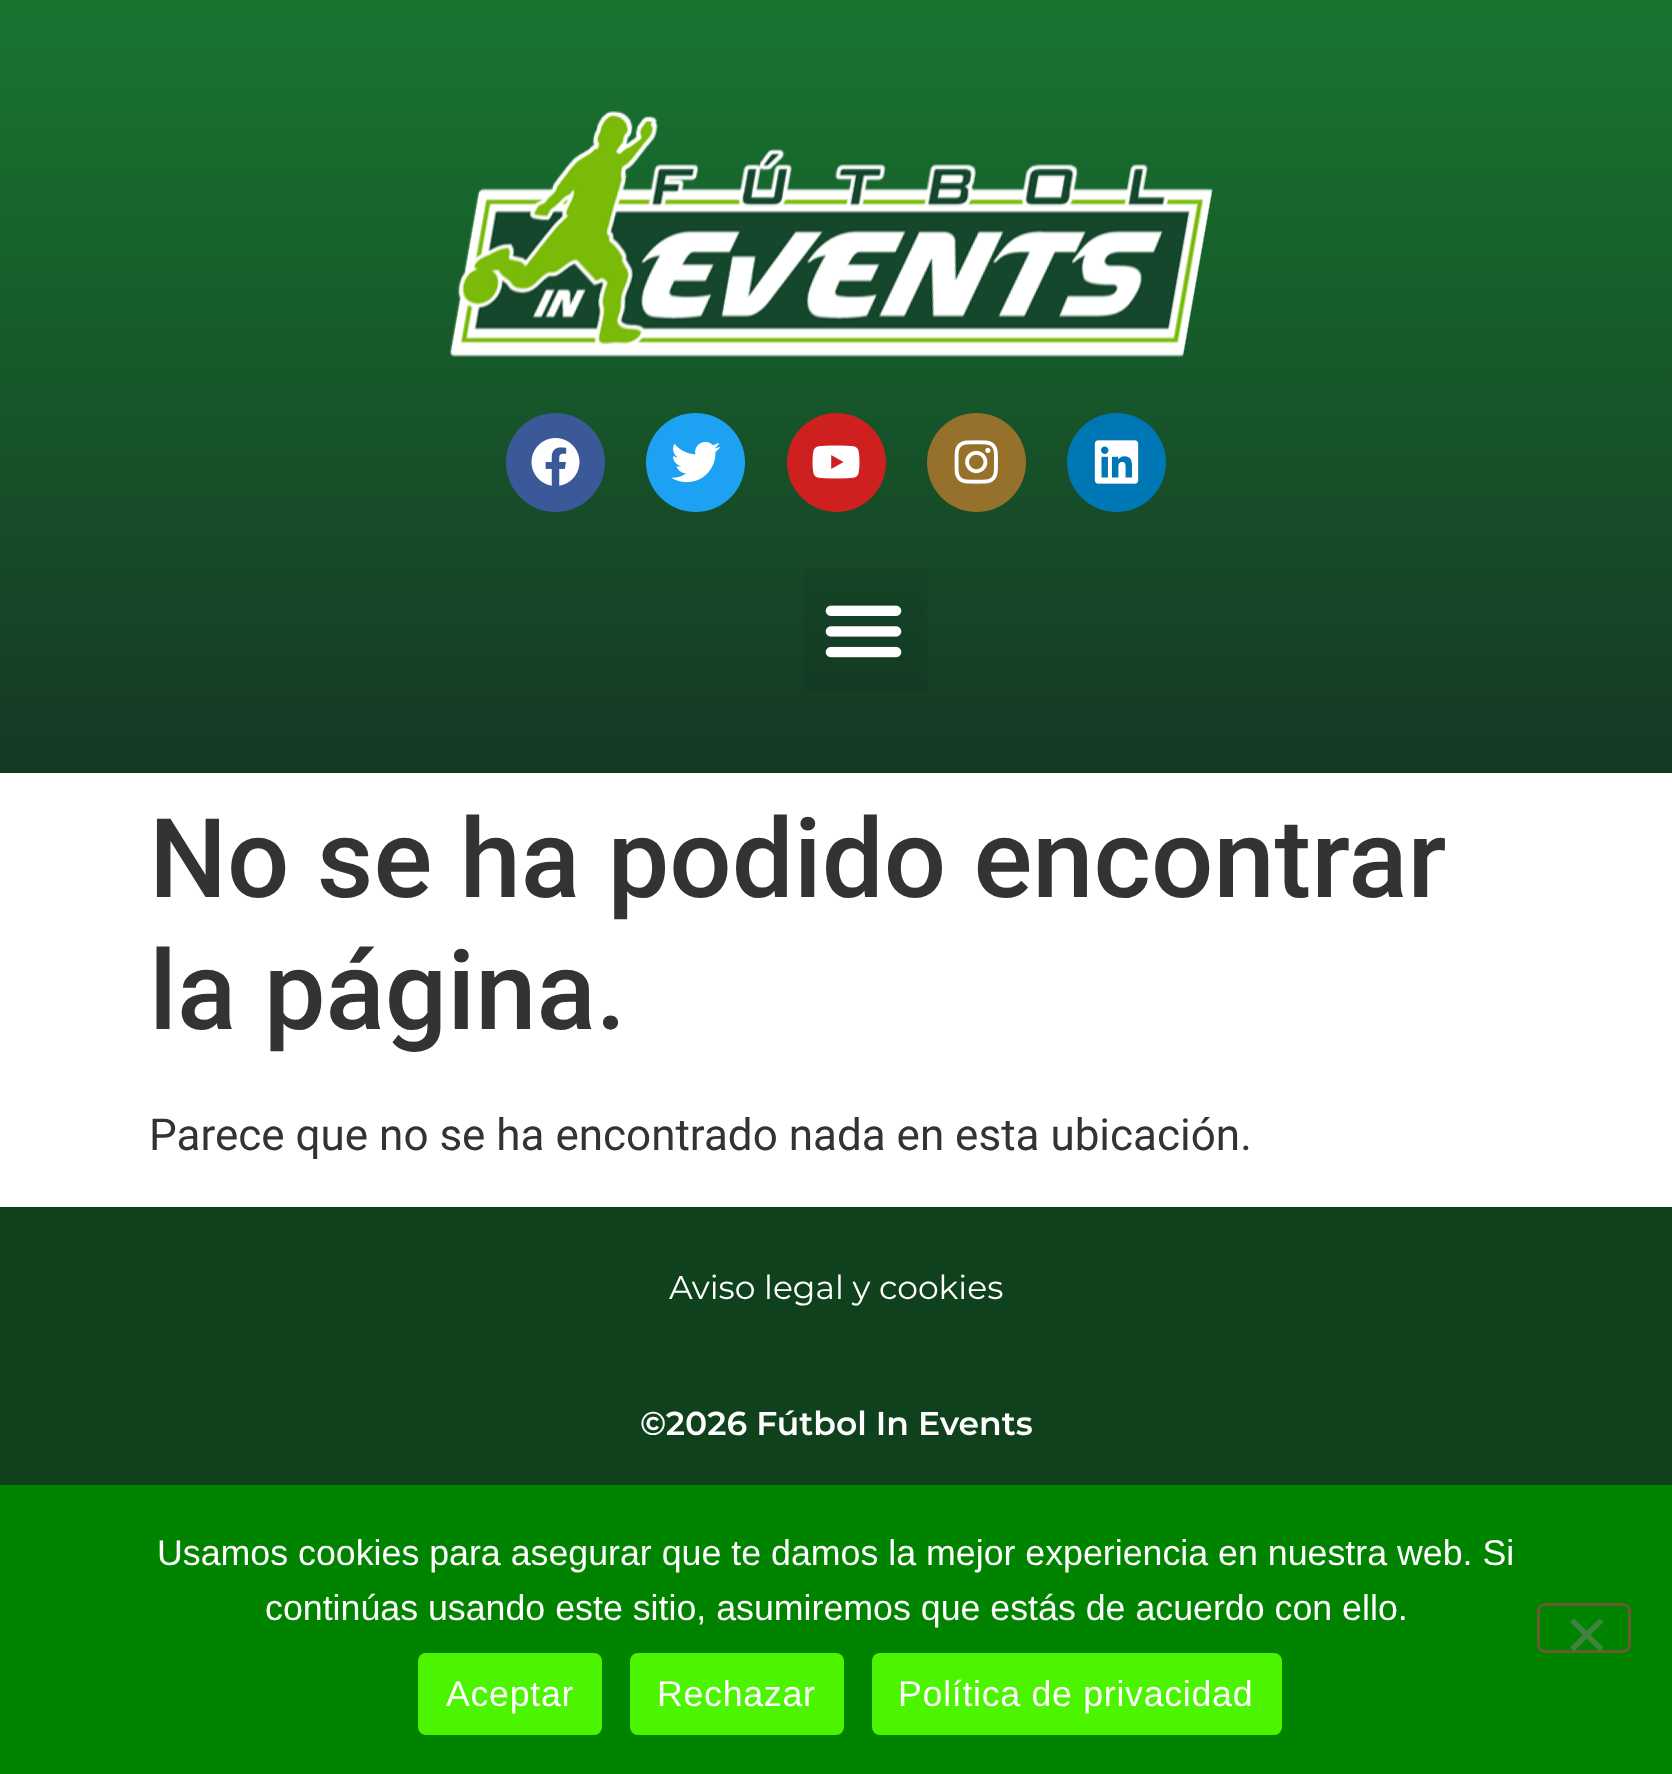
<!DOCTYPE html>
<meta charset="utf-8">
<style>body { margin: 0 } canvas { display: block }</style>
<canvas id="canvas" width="1672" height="1774"></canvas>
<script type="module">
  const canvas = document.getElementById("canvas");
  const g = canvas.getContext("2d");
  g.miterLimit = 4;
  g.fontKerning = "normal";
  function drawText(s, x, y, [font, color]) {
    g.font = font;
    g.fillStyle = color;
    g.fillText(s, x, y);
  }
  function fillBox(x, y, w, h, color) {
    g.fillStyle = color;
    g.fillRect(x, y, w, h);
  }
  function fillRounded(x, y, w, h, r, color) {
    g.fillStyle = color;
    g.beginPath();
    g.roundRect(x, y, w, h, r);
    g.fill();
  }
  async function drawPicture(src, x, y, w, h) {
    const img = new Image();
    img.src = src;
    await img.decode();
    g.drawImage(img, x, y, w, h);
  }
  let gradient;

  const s1 = ["500 110px Roboto", "#333333"];
  const s2 = ["44px Roboto", "#333333"];
  const s3 = ["33px Montserrat", "#FFFFFF"];
  const s4 = ["600 33px Montserrat", "#FFFFFF"];
  const s5 = ["35.75px Liberation Sans", "#FFFFFF"];

  fillBox(0, 0, 1672, 1774, "#FFFFFF");
  gradient = g.createLinearGradient(836, 0, 836, 773);
  gradient.addColorStop(0, "#187530");
  gradient.addColorStop(1, "#153824");
  g.fillStyle = gradient;
  g.fillRect(0, 0, 1672, 773);
  await drawPicture("pic1.png", 449, 111, 764, 246);
  g.fillStyle = "#3B5998";
  g.beginPath();
  g.arc(555.5, 462.5, 49.5, 0, Math.PI * 2);
  g.fill();
  await drawPicture("pic2.png", 531, 438, 49, 48);
  g.fillStyle = "#1DA1F2";
  g.beginPath();
  g.arc(695.5, 462.5, 49.5, 0, Math.PI * 2);
  g.fill();
  await drawPicture("pic3.png", 671, 441, 50, 42);
  g.fillStyle = "#CD201F";
  g.beginPath();
  g.arc(836.5, 462.5, 49.5, 0, Math.PI * 2);
  g.fill();
  await drawPicture("pic4.png", 812, 445, 48, 34);
  g.fillStyle = "#95712B";
  g.beginPath();
  g.arc(976.5, 462.5, 49.5, 0, Math.PI * 2);
  g.fill();
  await drawPicture("pic5.png", 954, 440, 44, 44);
  g.fillStyle = "#0077B5";
  g.beginPath();
  g.arc(1116.5, 462.5, 49.5, 0, Math.PI * 2);
  g.fill();
  await drawPicture("pic6.png", 1094, 440, 45, 44);
  fillBox(803, 567, 124, 123, "rgba(0, 0, 0, 0.05)");
  await drawPicture("pic7.png", 825, 605, 77, 53);
  drawText("No se ha podido encontrar", 149, 897, s1);
  drawText("la página.", 149, 1029, s1);
  drawText("Parece que no se ha encontrado nada en esta ubicación.", 149, 1150, s2);
  fillBox(0, 1207, 1672, 278, "#0F421C");
  drawText("Aviso legal y cookies", 669, 1299, s3);
  drawText("©2026 Fútbol In Events", 640, 1435, s4);
  fillBox(0, 1485, 1672, 289, "#008400");
  drawText("Usamos cookies para asegurar que te damos la mejor experiencia en nuestra web. Si", 157, 1565, s5);
  drawText("continúas usando este sitio, asumiremos que estás de acuerdo con ello.", 265, 1620, s5);
  g.beginPath();
  g.roundRect(1538.5, 1604.5, 91, 47, 6.5);
  g.strokeStyle = "#665C33";
  g.lineWidth = 3;
  g.stroke();
  g.fillStyle = "#408240";
  g.beginPath();
  g.moveTo(1599.5, 1618.5);
  g.lineTo(1603.5, 1622);
  g.lineTo(1574, 1651.5);
  g.lineTo(1570, 1647.5);
  g.closePath();
  g.fill();
  g.beginPath();
  g.moveTo(1570, 1622);
  g.lineTo(1574, 1618.5);
  g.lineTo(1603.5, 1647.5);
  g.lineTo(1599.5, 1651.5);
  g.closePath();
  g.fill();
  fillRounded(418, 1653, 184, 82, 8, "#4DF400");
  g.letterSpacing = "0.7px";
  drawText("Aceptar", 446, 1706, s5);
  fillRounded(630, 1653, 214, 82, 8, "#4DF400");
  drawText("Rechazar", 657, 1706, s5);
  fillRounded(872, 1653, 410, 82, 8, "#4DF400");
  drawText("Política de privacidad", 898, 1706, s5);
</script>
